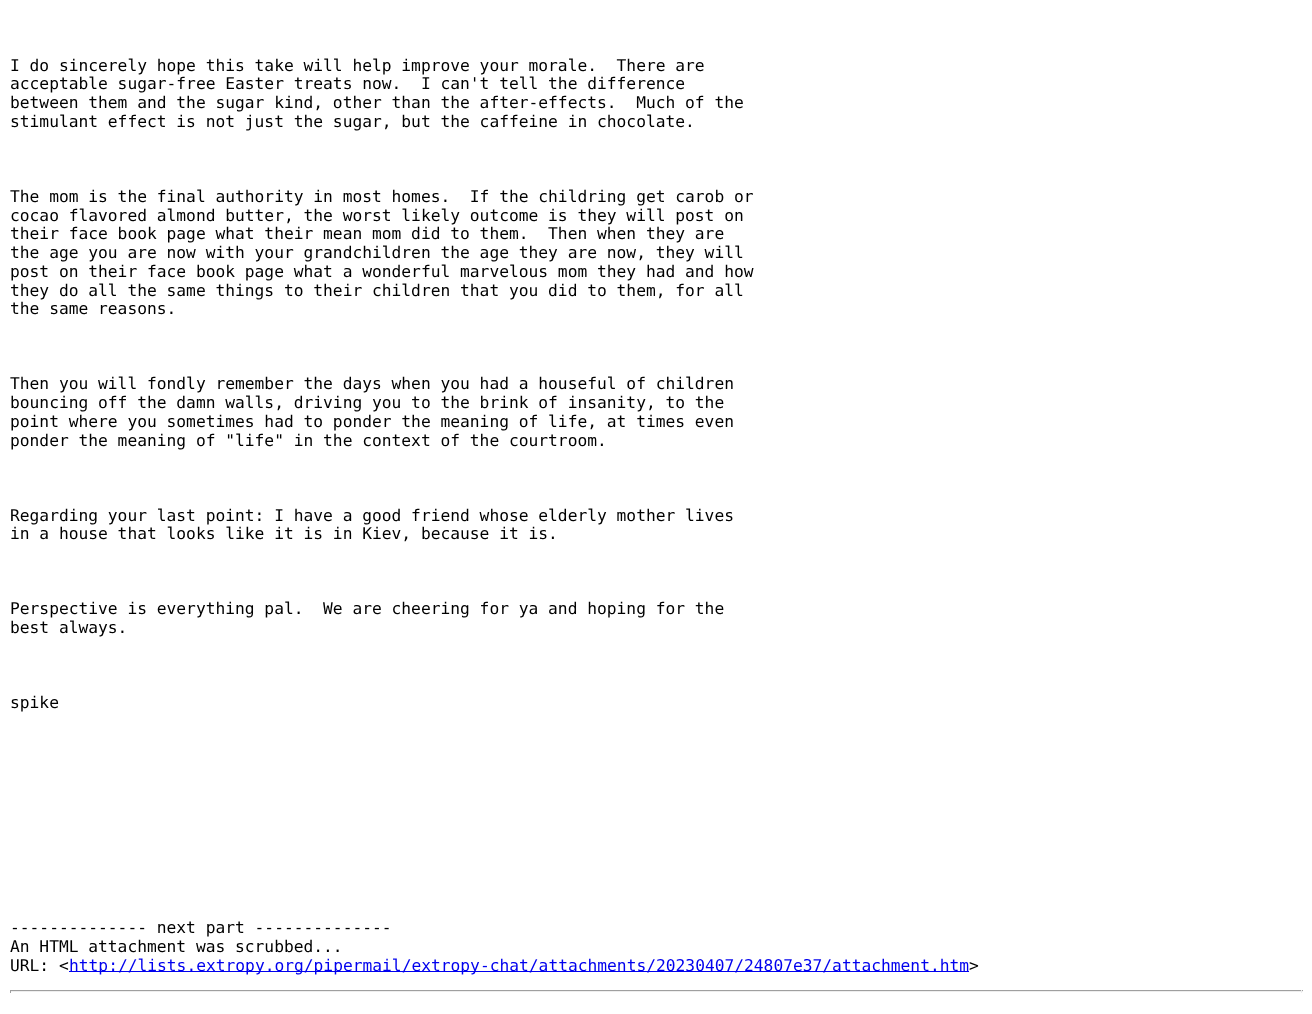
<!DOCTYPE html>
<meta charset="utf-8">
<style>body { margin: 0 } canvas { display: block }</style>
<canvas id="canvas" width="1312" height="1014"></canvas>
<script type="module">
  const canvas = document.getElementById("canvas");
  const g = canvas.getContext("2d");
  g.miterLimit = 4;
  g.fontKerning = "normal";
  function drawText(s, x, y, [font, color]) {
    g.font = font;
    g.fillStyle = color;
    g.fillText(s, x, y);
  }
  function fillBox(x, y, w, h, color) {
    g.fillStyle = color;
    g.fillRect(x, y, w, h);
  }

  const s1 = ["16.25px DejaVu Sans Mono", "#000000"];
  const s2 = ["16.25px DejaVu Sans Mono", "#0000EE"];

  fillBox(0, 0, 1312, 1014, "#FFFFFF");
  drawText("I do sincerely hope this take will help improve your morale.  There are", 10, 71, s1);
  drawText("acceptable sugar-free Easter treats now.  I can't tell the difference", 10, 89, s1);
  drawText("between them and the sugar kind, other than the after-effects.  Much of the", 10, 108, s1);
  drawText("stimulant effect is not just the sugar, but the caffeine in chocolate.", 10, 127, s1);
  drawText("The mom is the final authority in most homes.  If the childring get carob or", 10, 202, s1);
  drawText("cocao flavored almond butter, the worst likely outcome is they will post on", 10, 221, s1);
  drawText("their face book page what their mean mom did to them.  Then when they are", 10, 239, s1);
  drawText("the age you are now with your grandchildren the age they are now, they will", 10, 258, s1);
  drawText("post on their face book page what a wonderful marvelous mom they had and how", 10, 277, s1);
  drawText("they do all the same things to their children that you did to them, for all", 10, 296, s1);
  drawText("the same reasons.", 10, 314, s1);
  drawText("Then you will fondly remember the days when you had a houseful of children", 10, 389, s1);
  drawText("bouncing off the damn walls, driving you to the brink of insanity, to the", 10, 408, s1);
  drawText("point where you sometimes had to ponder the meaning of life, at times even", 10, 427, s1);
  drawText("ponder the meaning of \"life\" in the context of the courtroom.", 10, 446, s1);
  drawText("Regarding your last point: I have a good friend whose elderly mother lives", 10, 521, s1);
  drawText("in a house that looks like it is in Kiev, because it is.", 10, 539, s1);
  drawText("Perspective is everything pal.  We are cheering for ya and hoping for the", 10, 614, s1);
  drawText("best always.", 10, 633, s1);
  drawText("spike", 10, 708, s1);
  drawText("-------------- next part --------------", 10, 933, s1);
  drawText("An HTML attachment was scrubbed...", 10, 952, s1);
  drawText("URL: <", 10, 971, s1);
  fillBox(69, 971, 900, 1, "#0000EE");
  drawText("http://lists.extropy.org/pipermail/extropy-chat/attachments/20230407/24807e37/attachment.htm", 69, 971, s2);
  drawText(">", 969, 971, s1);
  fillBox(10, 990, 1293, 1, "#9F9F9F");
  fillBox(1301, 990, 1, 3, "#EEEEEE");
  fillBox(10, 991, 1293, 1, "#EEEEEE");
  fillBox(10, 990, 1, 3, "#9F9F9F");
</script>
